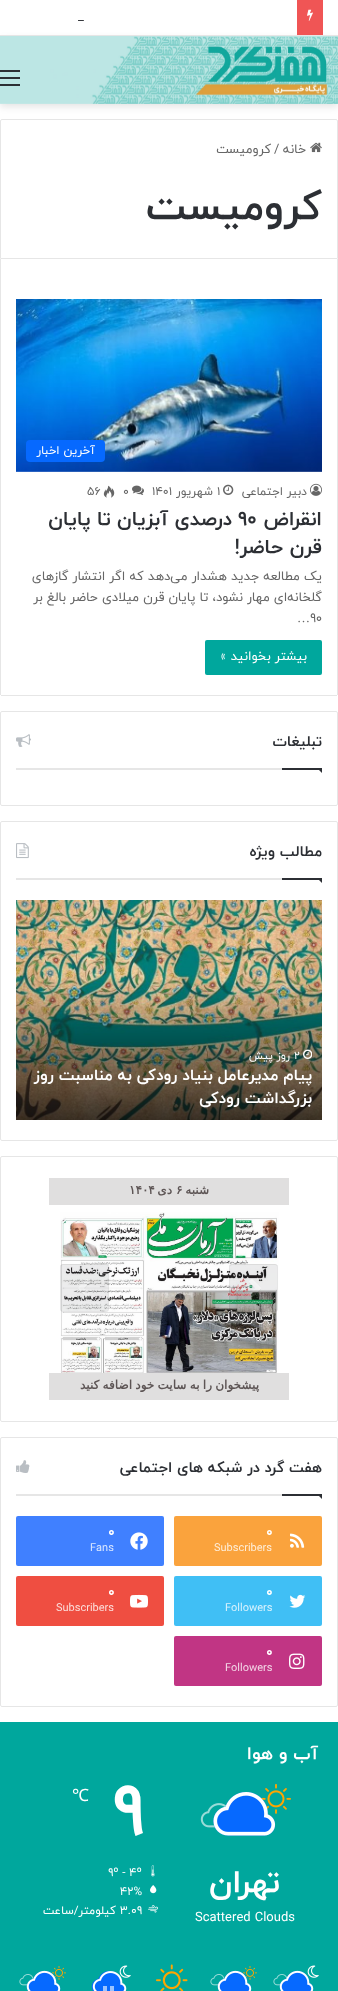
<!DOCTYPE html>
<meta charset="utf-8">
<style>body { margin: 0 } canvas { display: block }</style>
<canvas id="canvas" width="338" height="1991"></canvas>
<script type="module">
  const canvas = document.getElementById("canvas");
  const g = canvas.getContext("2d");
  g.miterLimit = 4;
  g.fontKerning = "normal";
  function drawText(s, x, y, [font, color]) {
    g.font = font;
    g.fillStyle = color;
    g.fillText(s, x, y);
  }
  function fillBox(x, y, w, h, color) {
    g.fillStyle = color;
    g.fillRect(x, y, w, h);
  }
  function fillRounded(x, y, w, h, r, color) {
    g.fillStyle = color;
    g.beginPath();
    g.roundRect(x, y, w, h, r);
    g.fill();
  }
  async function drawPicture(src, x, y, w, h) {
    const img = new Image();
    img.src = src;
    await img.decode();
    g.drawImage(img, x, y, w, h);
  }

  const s1 = ["13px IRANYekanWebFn", "#2C2F34"];
  const s2 = ["13px IRANYekanWebFn", "#666666"];
  const s3 = ["bold 41px IRANYekanWebFn", "#2C2F34"];
  const s4 = ["12px IRANYekanWebFn", "#FFFFFF"];
  const s5 = ["12px IRANYekanWebFn", "#666666"];
  const s6 = ["bold 20px IRANYekanWebFn", "#2C2F34"];
  const s7 = ["13px Liberation Serif", "#666666"];
  const s8 = ["13px IRANYekanWebFn", "#FFFFFF"];
  const s9 = ["bold 15px IRANYekanWebFn", "#2C2F34"];
  const s10 = ["11px IRANYekanWebFn", "#FFFFFF"];
  const s11 = ["bold 16px IRANYekanWebFn", "#FFFFFF"];
  const s12 = ["bold 12px DejaVu Sans", "#5D5555"];
  const s13 = ["bold 13px 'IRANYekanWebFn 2'", "#FFFFFF"];
  const s14 = ["11px IRANYekanWebFn", "#FEEDD8"];
  const s15 = ["11px IRANYekanWebFn", "#D9E6FF"];
  const s16 = ["11px IRANYekanWebFn", "#D9F2FD"];
  const s17 = ["11px IRANYekanWebFn", "#FCDCD9"];
  const s18 = ["11px IRANYekanWebFn", "#F3D7E6"];
  const s19 = ["bold 18px IRANYekanWebFn", "#FFFFFF"];
  const s20 = ["bold 32px IRANYekanWebFn", "#FFFFFF"];
  const s21 = ["bold 70px 'IRANYekanWebFn 2'", "#FFFFFF"];
  const s22 = ["17px Noto Sans", "#FFFFFF"];
  const s23 = ["11.75px IRANYekanWebFn", "#FFFFFF"];

  fillBox(0, 0, 338, 1991, "#FFFFFF");
  g.fillStyle = "rgba(0, 0, 0, 0.1)";
  g.filter = "blur(3.5px)";
  g.beginPath();
  g.rect(0, 39, 338, 68);
  g.fill();
  g.filter = "none";
  fillBox(0, 35, 338, 1, "#E6E6E6");
  fillBox(297, 0, 26, 35, "#F05555");
  await drawPicture("pic1.png", 307, 9, 6, 12);
  drawText("_", 78, 20, s1);
  await drawPicture("pic2.png", 0, 36, 338, 68);
  fillBox(0, 77, 20, 2, "#2C2F34");
  fillBox(0, 70, 20, 2, "#2C2F34");
  fillBox(0, 84, 20, 2, "#2C2F34");
  g.beginPath();
  g.roundRect(0.5, 119.5, 337, 139, [1.5, 1.5, 0, 0]);
  g.strokeStyle = "#E6E6E6";
  g.stroke();
  await drawPicture("pic3.png", 310, 142, 12, 11);
  g.direction = "rtl";
  drawText("خانه", 306, 153, s2);
  g.direction = "ltr";
  drawText("/", 274, 153, s2);
  g.direction = "rtl";
  drawText("کرومیست", 271, 153, s2);
  drawText("کرومیست", 322, 219, s3);
  fillBox(337, 259, 1, 436, "#E6E6E6");
  fillBox(1, 695, 336, 1, "#E6E6E6");
  fillBox(0, 259, 1, 436, "#E6E6E6");
  await drawPicture("pic4.png", 16, 299, 306, 173);
  fillRounded(26, 440, 79, 22, 4, "#0669FF");
  drawText("آخرین اخبار", 95, 454, s4);
  await drawPicture("pic5.png", 310, 483, 12, 13);
  drawText("دبیر اجتماعی", 307, 495, s5);
  await drawPicture("pic6.png", 223, 484, 11, 11);
  g.direction = "ltr";
  drawText("۱", 217, 495, s5);
  g.direction = "rtl";
  drawText("شهریور", 213, 495, s5);
  g.direction = "ltr";
  drawText("۱۴۰۱", 152, 495, s5);
  await drawPicture("pic7.png", 132, 485, 12, 10);
  drawText("۰", 123, 495, s5);
  await drawPicture("pic8.png", 103, 485, 12, 13);
  drawText("۵۶", 87, 495, s5);
  g.direction = "rtl";
  drawText("انقراض", 322, 525, s6);
  g.direction = "ltr";
  drawText("۹۰", 238, 525, s6);
  g.direction = "rtl";
  drawText("درصدی آبزیان تا پایان", 232, 525, s6);
  drawText("قرن حاضر!", 322, 553, s6);
  drawText("یک مطالعه جدید هشدار می‌دهد که اگر انتشار گازهای", 322, 580, s2);
  drawText("گلخانه‌ای مهار نشود، تا پایان قرن میلادی حاضر بالغ بر", 322, 601, s2);
  g.direction = "ltr";
  drawText("۹۰", 310, 622, s2);
  drawText("…", 297, 622, s7);
  fillRounded(205, 640, 117, 35, 2, "#00A79D");
  g.direction = "rtl";
  drawText("بیشتر بخوانید »", 307, 660, s8);
  g.beginPath();
  g.roundRect(0.5, 711.5, 337, 94, 1.5);
  g.stroke();
  fillBox(16, 768, 266, 2, "#E6E6E6");
  drawText("تبلیغات", 322, 746, s9);
  await drawPicture("pic9.png", 16, 734, 15, 13);
  g.beginPath();
  g.moveTo(317, 768);
  g.lineTo(322, 768);
  g.lineTo(322, 773);
  g.closePath();
  g.fill();
  fillBox(282, 768, 40, 2, "#2C2F34");
  g.beginPath();
  g.roundRect(0.5, 821.5, 337, 319, 1.5);
  g.stroke();
  fillBox(16, 878, 266, 2, "#E6E6E6");
  drawText("مطالب ویژه", 322, 856, s9);
  await drawPicture("pic10.png", 16, 843, 13, 16);
  g.beginPath();
  g.moveTo(317, 878);
  g.lineTo(322, 878);
  g.lineTo(322, 883);
  g.closePath();
  g.fill();
  fillBox(282, 878, 40, 2, "#2C2F34");
  await drawPicture("pic11.png", 16, 900, 306, 220);
  await drawPicture("pic12.png", 303, 1049, 9, 10);
  g.direction = "ltr";
  drawText("۲", 294, 1059, s10);
  g.direction = "rtl";
  drawText("روز پیش", 290, 1059, s10);
  drawText("پیام مدیرعامل بنیاد رودکی به مناسبت روز", 312, 1080, s11);
  drawText("بزرگداشت رودکی", 312, 1103, s11);
  g.beginPath();
  g.roundRect(0.5, 1156.5, 337, 265, 1.5);
  g.stroke();
  fillBox(49, 1178, 240, 27, "#E0DFDF");
  drawText("شنبه", 209, 1194, s12);
  g.direction = "ltr";
  drawText("۶", 176, 1194, s12);
  g.direction = "rtl";
  drawText("دی", 172, 1194, s12);
  g.direction = "ltr";
  drawText("۱۴۰۴", 129, 1194, s12);
  await drawPicture("pic13.png", 60, 1212, 219, 161);
  await drawPicture("pic14.png", 228, 1264, 50, 49);
  await drawPicture("pic15.png", 60, 1264, 49, 48);
  fillBox(49, 1373, 240, 27, "#E0DFDF");
  g.wordSpacing = "-0.5px";
  g.direction = "rtl";
  drawText("پیشخوان را به سایت خود اضافه کنید", 259, 1389, s12);
  g.beginPath();
  g.roundRect(0.5, 1437.5, 337, 269, 1.5);
  g.stroke();
  fillBox(16, 1494, 266, 2, "#E6E6E6");
  g.wordSpacing = "0px";
  drawText("هفت گرد در شبکه های اجتماعی", 322, 1472, s9);
  await drawPicture("pic16.png", 16, 1460, 14, 13);
  g.beginPath();
  g.moveTo(317, 1494);
  g.lineTo(322, 1494);
  g.lineTo(322, 1499);
  g.closePath();
  g.fill();
  fillBox(282, 1494, 40, 2, "#2C2F34");
  fillRounded(174, 1516, 148, 50, 2, "#FAA33D");
  await drawPicture("pic17.png", 290, 1533, 15, 15);
  g.direction = "ltr";
  drawText("۰", 266, 1536, s13);
  drawText("Subscribers", 214, 1551, s14);
  fillRounded(16, 1516, 148, 50, 2, "#4080FF");
  await drawPicture("pic18.png", 130, 1532, 18, 18);
  drawText("۰", 108, 1536, s13);
  drawText("Fans", 90, 1551, s15);
  fillRounded(174, 1576, 148, 50, 2, "#40BFF5");
  await drawPicture("pic19.png", 289, 1594, 17, 14);
  drawText("۰", 266, 1596, s13);
  drawText("Followers", 225, 1611, s16);
  fillRounded(16, 1576, 148, 50, 2, "#EF4E41");
  await drawPicture("pic20.png", 130, 1594, 18, 14);
  drawText("۰", 108, 1596, s13);
  drawText("Subscribers", 56, 1611, s17);
  fillRounded(174, 1636, 148, 50, 2, "#C13584");
  await drawPicture("pic21.png", 289, 1653, 16, 16);
  drawText("۰", 266, 1656, s13);
  drawText("Followers", 225, 1671, s18);
  fillBox(0, 1722, 338, 269, "#00A79D");
  g.direction = "rtl";
  drawText("آب و هوا", 318, 1759, s19);
  await drawPicture("pic22.png", 261, 1784, 30, 30);
  await drawPicture("pic25.png", 200, 1803, 27, 25);
  await drawPicture("pic23.png", 213, 1792, 62, 44);
  await drawPicture("pic24.png", 213, 1792, 63, 44);
  drawText("تهران", 280, 1892, s20);
  g.direction = "ltr";
  drawText("Scattered Clouds", 195, 1921, s8);
  drawText("۹", 111, 1834, s21);
  drawText("℃", 72, 1801, s22);
  await drawPicture("pic26.png", 151, 1865, 4, 12);
  drawText("۹º - ۴º", 108, 1876, s23);
  await drawPicture("pic27.png", 150, 1885, 7, 9);
  drawText("۴۲%", 120, 1895, s23);
  await drawPicture("pic28.png", 148, 1905, 10, 8);
  drawText("۳.۰۹", 120, 1914, s23);
  g.direction = "rtl";
  drawText("کیلومتر/ساعت", 116, 1914, s23);
  await drawPicture("pic29.png", 307, 1965, 12, 13);
  await drawPicture("pic32.png", 273, 1974, 15, 12);
  await drawPicture("pic30.png", 279, 1970, 35, 21);
  await drawPicture("pic31.png", 279, 1970, 35, 21);
  await drawPicture("pic33.png", 243, 1966, 14, 14);
  await drawPicture("pic32.png", 210, 1974, 15, 12);
  await drawPicture("pic34.png", 217, 1970, 35, 21);
  await drawPicture("pic35.png", 217, 1970, 35, 21);
  await drawPicture("pic36.png", 156, 1964, 32, 27);
  await drawPicture("pic29.png", 119, 1965, 12, 13);
  await drawPicture("pic37.png", 91, 1970, 34, 21);
  await drawPicture("pic38.png", 92, 1971, 35, 20);
  fillBox(110, 1986, 4, 5, "#9BC3FF");
  fillBox(103, 1986, 4, 5, "#9BC3FF");
  await drawPicture("pic33.png", 52, 1966, 14, 14);
  await drawPicture("pic32.png", 19, 1974, 15, 12);
  await drawPicture("pic34.png", 26, 1970, 35, 21);
  await drawPicture("pic35.png", 26, 1970, 35, 21);
</script>
